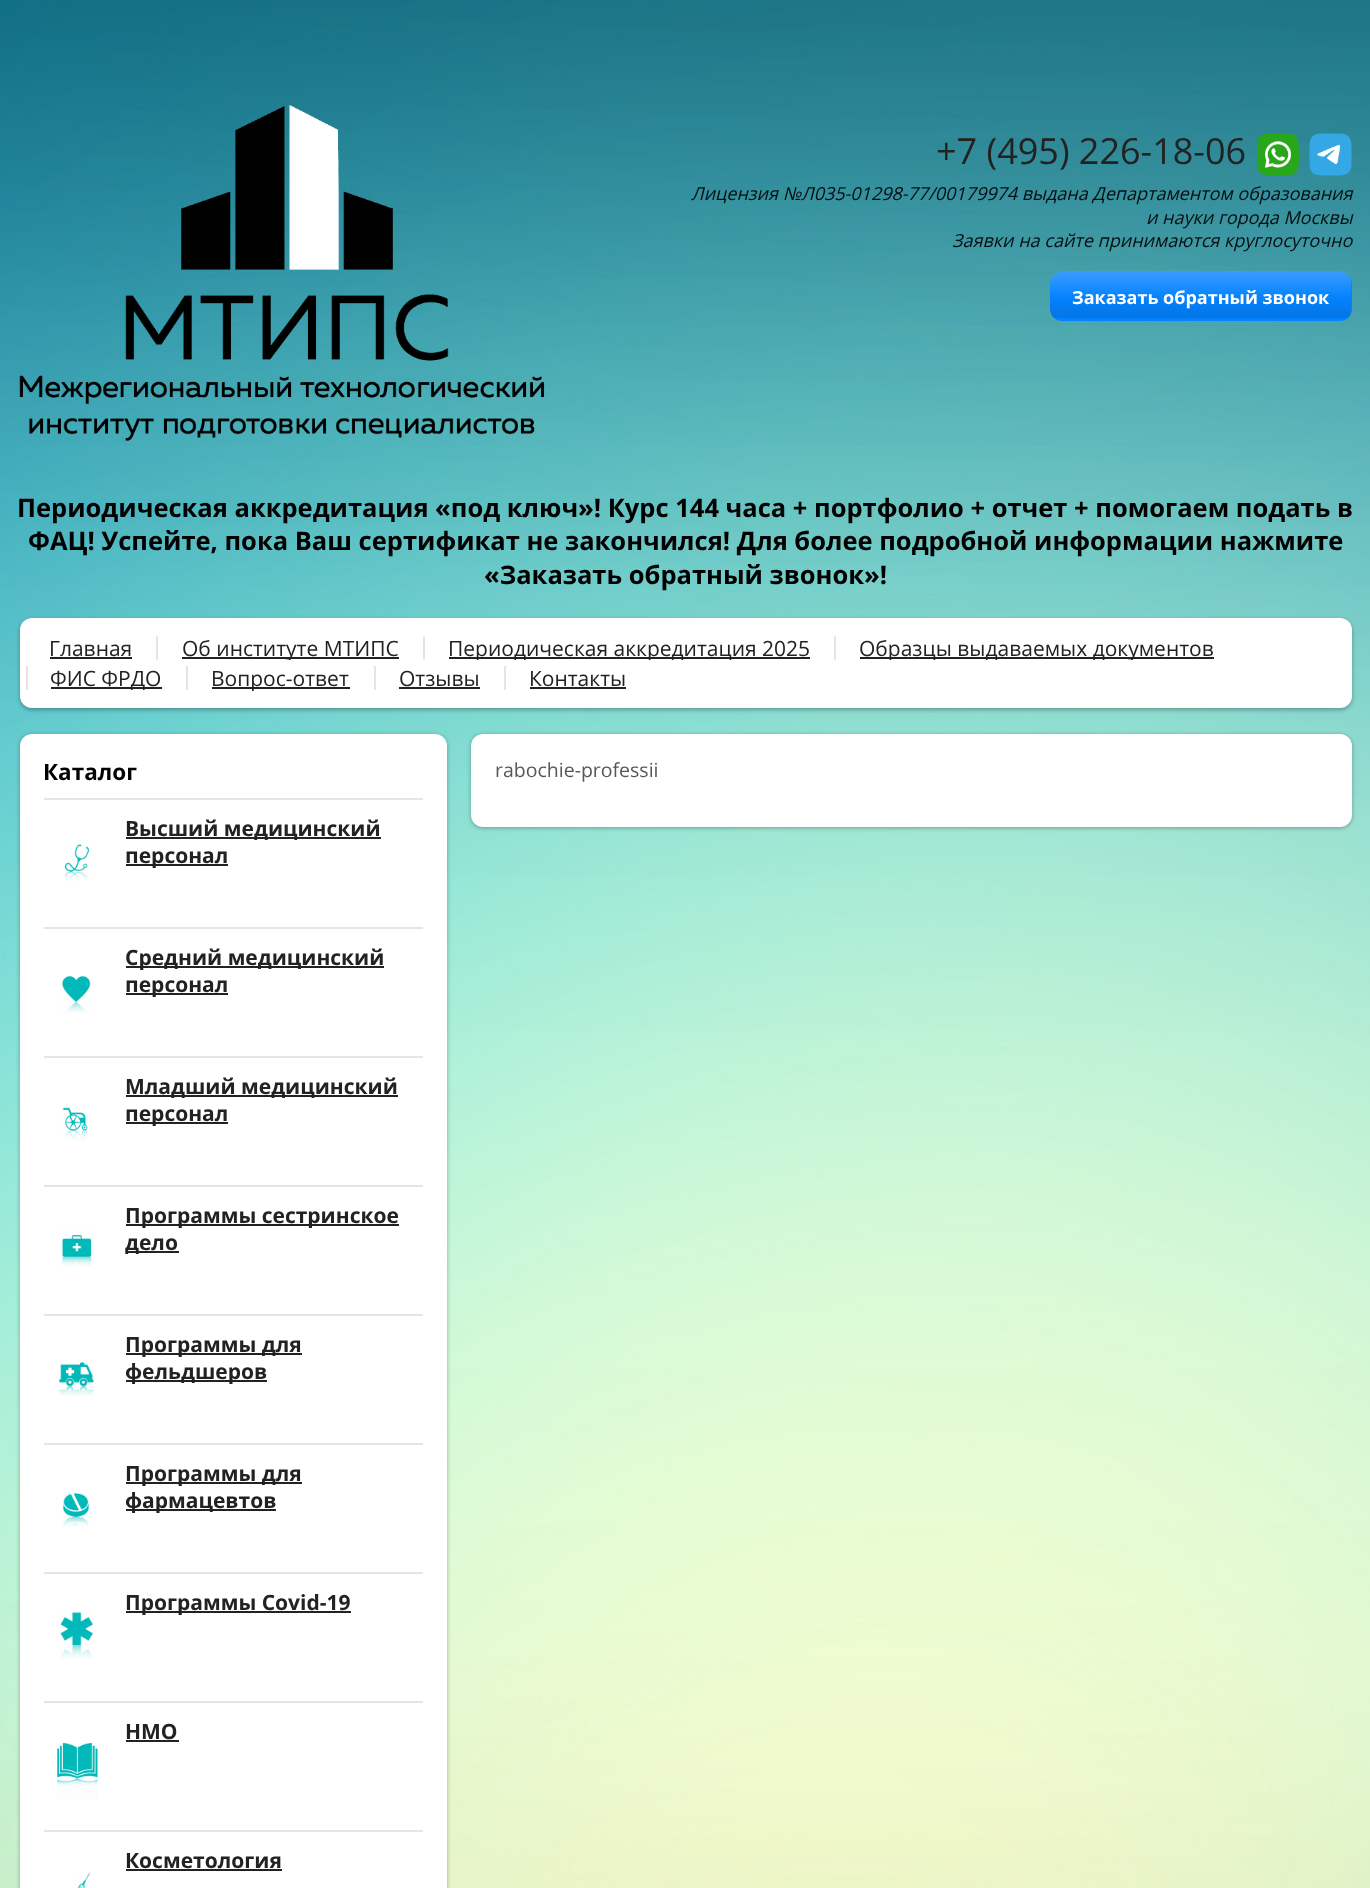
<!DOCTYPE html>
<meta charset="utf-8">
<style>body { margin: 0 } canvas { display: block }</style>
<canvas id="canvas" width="1370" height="1888"></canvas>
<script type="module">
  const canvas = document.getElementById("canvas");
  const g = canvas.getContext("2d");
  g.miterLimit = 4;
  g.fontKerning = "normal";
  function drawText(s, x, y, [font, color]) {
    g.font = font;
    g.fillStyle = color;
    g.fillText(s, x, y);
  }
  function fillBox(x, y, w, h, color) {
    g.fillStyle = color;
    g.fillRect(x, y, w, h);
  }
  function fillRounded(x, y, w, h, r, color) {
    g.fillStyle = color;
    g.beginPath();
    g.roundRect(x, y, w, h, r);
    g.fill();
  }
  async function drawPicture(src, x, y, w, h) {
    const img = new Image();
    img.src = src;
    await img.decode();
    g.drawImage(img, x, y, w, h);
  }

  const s1 = ["36px Open Sans", "#222222"];
  const s2 = ["italic 18px Open Sans", "#050E10"];
  const s3 = ["bold 18px Open Sans", "#FFFFFF"];
  const s4 = ["bold 25.5px Open Sans", "#000000"];
  const s5 = ["21px Open Sans", "#222222"];
  const s6 = ["bold 22.5px Open Sans", "#000000"];
  const s7 = ["bold 21px Open Sans", "#222222"];
  const s8 = ["19.5px Open Sans", "#575757"];

  fillBox(0, 0, 1370, 1888, "#FFFFFF");
  await drawPicture("pic1.png", 0, 0, 1370, 1888);
  await drawPicture("pic2.png", 19, 105, 526, 336);
  drawText("+7 (495) 226-18-06", 936, 164, s1);
  await drawPicture("pic3.png", 1257, 133, 42, 43);
  await drawPicture("pic4.png", 1309, 133, 43, 43);
  drawText("Лицензия №Л035-01298-77/00179974 выдана Департаментом образования", 691, 200, s2);
  drawText("и науки города Москвы", 1146, 224, s2);
  drawText("Заявки на сайте принимаются круглосуточно", 952, 247, s2);
  fillRounded(1050, 272, 302, 49, 12, "#0583FF");
  await drawPicture("pic5.png", 1050, 271, 302, 47);
  drawText("Заказать обратный звонок", 1072, 304, s3);
  drawText("Периодическая аккредитация «под ключ»! Курс 144 часа + портфолио + отчет + помогаем подать в", 17, 517, s4);
  drawText("ФАЦ! Успейте, пока Ваш сертификат не закончился! Для более подробной информации нажмите", 28, 550, s4);
  drawText("«Заказать обратный звонок»!", 484, 584, s4);
  g.fillStyle = "rgba(0, 0, 0, 0.3)";
  g.filter = "blur(2px)";
  g.beginPath();
  g.roundRect(20, 620, 1332, 90, 12);
  g.fill();
  g.filter = "none";
  fillRounded(20, 618, 1332, 90, 12, "#FFFFFF");
  drawText("Главная", 49, 656, s5);
  fillBox(50, 657, 82, 2, "#222222");
  fillBox(156, 636, 2, 24, "#E5E5E5");
  fillBox(182, 657, 217, 2, "#222222");
  g.save();
  g.beginPath();
  g.rect(182, 636, 217, 24);
  g.clip();
  drawText("Об институте МТИПС", 182, 656, s5);
  g.restore();
  fillBox(423, 636, 2, 24, "#E5E5E5");
  fillBox(449, 657, 361, 2, "#222222");
  g.save();
  g.beginPath();
  g.rect(449, 636, 361, 24);
  g.clip();
  drawText("Периодическая аккредитация 2025", 448, 656, s5);
  g.restore();
  fillBox(834, 636, 2, 24, "#E5E5E5");
  fillBox(860, 657, 354, 2, "#222222");
  g.save();
  g.beginPath();
  g.rect(860, 636, 354, 24);
  g.clip();
  drawText("Образцы выдаваемых документов", 859, 656, s5);
  g.restore();
  fillBox(26, 666, 2, 24, "#E5E5E5");
  fillBox(51, 687, 111, 2, "#222222");
  drawText("ФИС ФРДО", 50, 686, s5);
  fillBox(186, 666, 2, 24, "#E5E5E5");
  fillBox(212, 687, 138, 2, "#222222");
  drawText("Вопрос-ответ", 211, 686, s5);
  fillBox(374, 666, 2, 24, "#E5E5E5");
  drawText("Отзывы", 399, 686, s5);
  fillBox(399, 687, 81, 2, "#222222");
  fillBox(504, 666, 2, 24, "#E5E5E5");
  drawText("Контакты", 529, 686, s5);
  fillBox(530, 687, 96, 2, "#222222");
  g.fillStyle = "rgba(0, 0, 0, 0.3)";
  g.filter = "blur(2px)";
  g.beginPath();
  g.roundRect(20, 735, 427, 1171, 12);
  g.fill();
  g.filter = "none";
  fillRounded(20, 734, 427, 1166, 12, "#FFFFFF");
  drawText("Каталог", 43, 780, s6);
  fillBox(44, 798, 379, 2, "#E5E5E5");
  await drawPicture("pic6.png", 64, 844, 26, 37);
  fillBox(126, 837, 255, 2, "#222222");
  drawText("Высший медицинский", 125, 836, s7);
  fillBox(126, 864, 102, 2, "#222222");
  drawText("персонал", 125, 863, s7);
  fillBox(44, 927, 379, 2, "#E5E5E5");
  await drawPicture("pic7.png", 62, 976, 29, 37);
  fillBox(126, 966, 258, 2, "#222222");
  drawText("Средний медицинский", 125, 965, s7);
  fillBox(126, 993, 102, 2, "#222222");
  drawText("персонал", 125, 992, s7);
  fillBox(44, 1056, 379, 2, "#E5E5E5");
  await drawPicture("pic8.png", 62, 1107, 26, 33);
  fillBox(126, 1095, 272, 2, "#222222");
  drawText("Младший медицинский", 125, 1094, s7);
  fillBox(126, 1122, 102, 2, "#222222");
  drawText("персонал", 125, 1121, s7);
  fillBox(44, 1185, 379, 2, "#E5E5E5");
  await drawPicture("pic9.png", 62, 1226, 30, 41);
  fillBox(126, 1224, 273, 2, "#222222");
  drawText("Программы сестринское", 125, 1223, s7);
  fillBox(126, 1251, 53, 2, "#222222");
  drawText("дело", 125, 1250, s7);
  fillBox(44, 1314, 379, 2, "#E5E5E5");
  await drawPicture("pic10.png", 59, 1361, 35, 35);
  fillBox(126, 1353, 176, 2, "#222222");
  drawText("Программы для", 125, 1352, s7);
  fillBox(126, 1380, 141, 2, "#222222");
  drawText("фельдшеров", 125, 1379, s7);
  fillBox(44, 1443, 379, 2, "#E5E5E5");
  await drawPicture("pic11.png", 62, 1493, 27, 34);
  fillBox(126, 1482, 176, 2, "#222222");
  drawText("Программы для", 125, 1481, s7);
  fillBox(126, 1509, 150, 2, "#222222");
  drawText("фармацевтов", 125, 1508, s7);
  fillBox(44, 1572, 379, 2, "#E5E5E5");
  fillBox(126, 1611, 225, 2, "#222222");
  drawText("Программы Covid-19", 125, 1610, s7);
  await drawPicture("pic12.png", 60, 1612, 34, 47);
  fillBox(44, 1701, 379, 2, "#E5E5E5");
  drawText("НМО", 125, 1739, s7);
  fillBox(126, 1740, 53, 2, "#222222");
  await drawPicture("pic13.png", 57, 1743, 41, 57);
  fillBox(44, 1830, 379, 2, "#E5E5E5");
  drawText("Косметология", 125, 1868, s7);
  fillBox(126, 1869, 156, 2, "#222222");
  await drawPicture("pic14.png", 77, 1872, 14, 16);
  g.fillStyle = "rgba(0, 0, 0, 0.3)";
  g.filter = "blur(2px)";
  g.beginPath();
  g.roundRect(471, 735, 881, 93, 12);
  g.fill();
  g.filter = "none";
  fillRounded(471, 734, 881, 93, 12, "#FFFFFF");
  drawText("rabochie-professii", 495, 777, s8);
</script>
